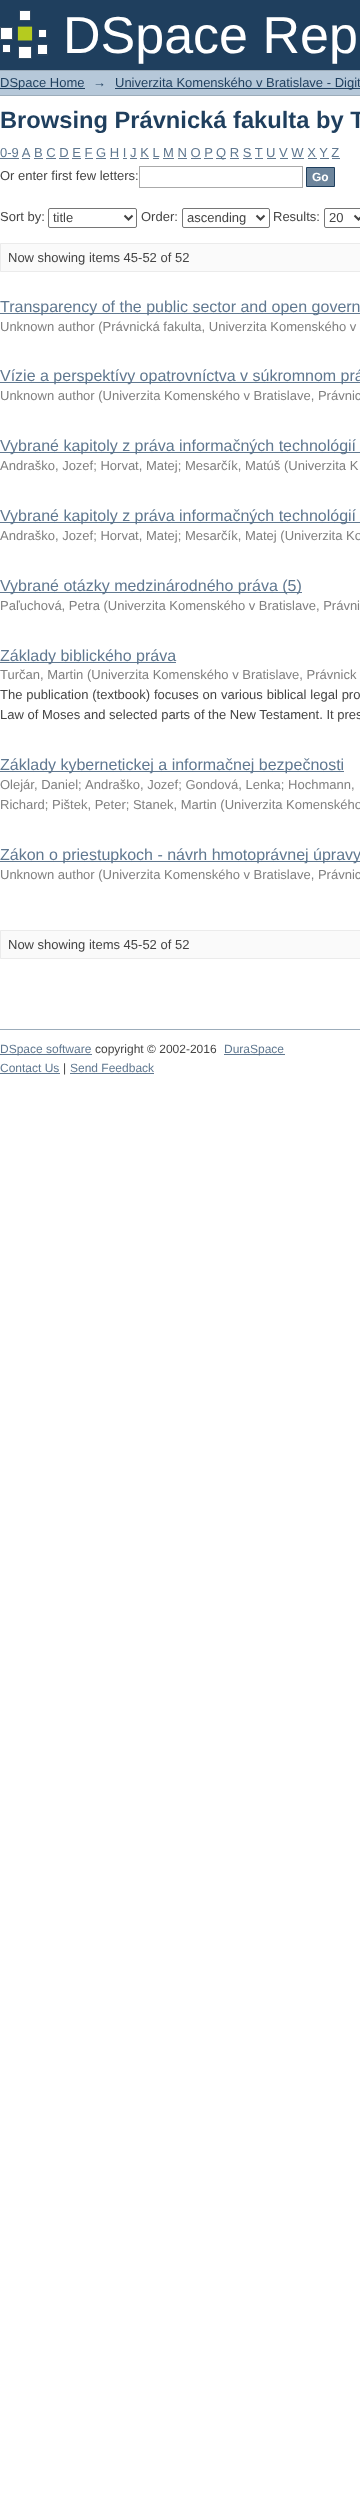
<!DOCTYPE html>
<meta charset="utf-8">
<style>body { margin: 0 } canvas { display: block }</style>
<canvas id="canvas" width="360" height="2500"></canvas>
<script type="module">
  const canvas = document.getElementById("canvas");
  const g = canvas.getContext("2d");
  g.miterLimit = 4;
  g.fontKerning = "normal";
  function drawText(s, x, y, [font, color]) {
    g.font = font;
    g.fillStyle = color;
    g.fillText(s, x, y);
  }
  function fillBox(x, y, w, h, color) {
    g.fillStyle = color;
    g.fillRect(x, y, w, h);
  }
  async function drawPicture(src, x, y, w, h) {
    const img = new Image();
    img.src = src;
    await img.decode();
    g.drawImage(img, x, y, w, h);
  }

  const s1 = ["52px Liberation Sans", "#FFFFFF"];
  const s2 = ["13px Liberation Sans", "#1F3F5E"];
  const s3 = ["bold 23.7px Liberation Sans", "#1F3F5E"];
  const s4 = ["13px Liberation Sans", "#607890"];
  const s5 = ["13px Liberation Sans", "#444444"];
  const s6 = ["bold 12px Liberation Sans", "#FFFFFF"];
  const s7 = ["16px Liberation Sans", "#607890"];
  const s8 = ["13px Liberation Sans", "#808080"];
  const s9 = ["12px Liberation Sans", "#607890"];
  const s10 = ["12px Liberation Sans", "#444444"];

  fillBox(0, 0, 360, 2500, "#FFFFFF");
  fillBox(0, 0, 360, 70, "#1F3F5E");
  await drawPicture("pic1.png", 0, 10, 48, 49);
  drawText("DSpace Rep", 63, 53, s1);
  fillBox(0, 71, 360, 24, "#B6C8D9");
  fillBox(0, 70, 360, 1, "#9CACBA");
  fillBox(0, 95, 360, 1, "#9CACBA");
  fillBox(0, 88, 85, 1, "#1F3F5E");
  drawText("DSpace Home", 0, 87, s2);
  drawText("→", 93, 87, s2);
  fillBox(115, 88, 245, 1, "#1F3F5E");
  drawText("Univerzita Komenského v Bratislave - Digit", 115, 87, s2);
  drawText("Browsing Právnická fakulta by T", 0, 128, s3);
  drawText("0-9 A", 0, 157, s4);
  fillBox(0, 158, 19, 1, "#607890");
  drawText("B C D E F G H I J K L", 34, 157, s4);
  fillBox(34, 158, 9, 1, "#607890");
  drawText("M N O P", 163, 157, s4);
  fillBox(163, 158, 11, 1, "#607890");
  fillBox(216, 158, 10, 1, "#607890");
  drawText("Q R S T U V W X Y Z", 216, 157, s4);
  fillBox(22, 158, 8, 1, "#607890");
  fillBox(46, 158, 10, 1, "#607890");
  fillBox(59, 158, 10, 1, "#607890");
  fillBox(72, 158, 9, 1, "#607890");
  fillBox(85, 158, 8, 1, "#607890");
  fillBox(96, 158, 10, 1, "#607890");
  fillBox(110, 158, 9, 1, "#607890");
  fillBox(123, 158, 4, 1, "#607890");
  fillBox(130, 158, 7, 1, "#607890");
  fillBox(140, 158, 9, 1, "#607890");
  fillBox(153, 158, 6, 1, "#607890");
  fillBox(178, 158, 9, 1, "#607890");
  fillBox(191, 158, 10, 1, "#607890");
  fillBox(204, 158, 9, 1, "#607890");
  fillBox(230, 158, 9, 1, "#607890");
  fillBox(243, 158, 9, 1, "#607890");
  fillBox(255, 158, 8, 1, "#607890");
  fillBox(267, 158, 9, 1, "#607890");
  fillBox(280, 158, 8, 1, "#607890");
  fillBox(292, 158, 12, 1, "#607890");
  fillBox(308, 158, 9, 1, "#607890");
  fillBox(320, 158, 9, 1, "#607890");
  fillBox(332, 158, 8, 1, "#607890");
  drawText("Or enter first few letters:", 0, 180, s5);
  g.strokeStyle = "#AAAAAA";
  g.strokeRect(139.5, 166.5, 163, 21);
  g.fillStyle = "#6D859C";
  g.beginPath();
  g.rect(306.5, 167.5, 28, 19);
  g.fill();
  g.strokeStyle = "#1F3F5E";
  g.stroke();
  drawText("Go", 312, 181, s6);
  drawText("Sort by:", 0, 221, s5);
  g.beginPath();
  g.roundRect(48.5, 208.5, 88, 19, 1.5);
  g.strokeStyle = "#767676";
  g.stroke();
  g.beginPath();
  g.moveTo(124.5, 215.5);
  g.lineTo(128.5, 219.5);
  g.lineTo(132.5, 215.5);
  g.strokeStyle = "#444444";
  g.lineWidth = 2;
  g.stroke();
  drawText("title", 53, 222, s5);
  drawText("Order:", 141, 221, s5);
  g.beginPath();
  g.roundRect(182.5, 208.5, 87, 19, 1.5);
  g.strokeStyle = "#767676";
  g.lineWidth = 1;
  g.stroke();
  g.beginPath();
  g.moveTo(256.5, 215.5);
  g.lineTo(260.5, 219.5);
  g.lineTo(264.5, 215.5);
  g.strokeStyle = "#444444";
  g.lineWidth = 2;
  g.stroke();
  drawText("ascending", 187, 222, s5);
  drawText("Results:", 273, 221, s5);
  g.beginPath();
  g.roundRect(324.5, 208.5, 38, 19, 1.5);
  g.strokeStyle = "#767676";
  g.lineWidth = 1;
  g.stroke();
  g.beginPath();
  g.moveTo(354.5, 215.5);
  g.lineTo(358.5, 219.5);
  g.lineTo(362.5, 215.5);
  g.strokeStyle = "#444444";
  g.lineWidth = 2;
  g.stroke();
  drawText("20", 329, 222, s5);
  g.fillStyle = "#FAFAFA";
  g.beginPath();
  g.rect(0.5, 243.5, 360, 28);
  g.fill();
  g.strokeStyle = "#EBEBEB";
  g.lineWidth = 1;
  g.stroke();
  drawText("Now showing items 45-52 of 52", 8, 262, s5);
  fillBox(0, 313, 360, 1, "#607890");
  drawText("Transparency of the public sector and open govern", 0, 312, s7);
  drawText("Unknown author (Právnická fakulta, Univerzita Komenského v", 0, 331, s8);
  fillBox(0, 382, 360, 1, "#607890");
  drawText("Vízie a perspektívy opatrovníctva v súkromnom prá", 0, 381, s7);
  drawText("Unknown author (Univerzita Komenského v Bratislave, Právnic", 0, 400, s8);
  fillBox(0, 452, 360, 1, "#607890");
  drawText("Vybrané kapitoly z práva informačných technológií", 0, 451, s7);
  drawText("Andraško, Jozef; Horvat, Matej; Mesarčík, Matúš (Univerzita K", 0, 470, s8);
  fillBox(0, 522, 360, 1, "#607890");
  drawText("Vybrané kapitoly z práva informačných technológií", 0, 521, s7);
  drawText("Andraško, Jozef; Horvat, Matej; Mesarčík, Matej (Univerzita Ko", 0, 540, s8);
  fillBox(0, 592, 302, 1, "#607890");
  drawText("Vybrané otázky medzinárodného práva (5)", 0, 591, s7);
  drawText("Paľuchová, Petra (Univerzita Komenského v Bratislave, Právni", 0, 610, s8);
  fillBox(0, 662, 176, 1, "#607890");
  drawText("Základy biblického práva", 0, 661, s7);
  drawText("Turčan, Martin (Univerzita Komenského v Bratislave, Právnick", 0, 679, s8);
  g.wordSpacing = "0.25px";
  drawText("The publication (textbook) focuses on various biblical legal pro", 0, 699, s5);
  g.wordSpacing = "0px";
  drawText("Law of Moses and selected parts of the New Testament. It pres", 0, 719, s5);
  fillBox(0, 771, 344, 1, "#607890");
  drawText("Základy kybernetickej a informačnej bezpečnosti", 0, 770, s7);
  drawText("Olejár, Daniel;", 0, 789, s8);
  drawText("Andraško, Jozef; Gondová, Lenka; Hochmann,", 85, 789, s8);
  drawText("Richard; Pištek, Peter; Stanek, Martin (Univerzita Komenského", 0, 809, s8);
  fillBox(0, 861, 360, 1, "#607890");
  drawText("Zákon o priestupkoch - návrh hmotoprávnej úpravy", 0, 860, s7);
  drawText("Unknown author (Univerzita Komenského v Bratislave, Právnic", 0, 879, s8);
  g.fillStyle = "#FAFAFA";
  g.beginPath();
  g.rect(0.5, 930.5, 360, 28);
  g.fill();
  g.stroke();
  drawText("Now showing items 45-52 of 52", 8, 949, s5);
  fillBox(0, 1029, 360, 1, "#9CACBA");
  fillBox(0, 1054, 92, 1, "#607890");
  drawText("DSpace software", 0, 1053, s9);
  drawText("copyright © 2002-2016", 95, 1053, s10);
  fillBox(224, 1054, 61, 1, "#607890");
  drawText("DuraSpace", 224, 1053, s9);
  drawText("Contact Us", 0, 1072, s9);
  fillBox(0, 1073, 60, 1, "#607890");
  drawText("|", 63, 1072, s10);
  drawText("Send Feedback", 70, 1072, s9);
  fillBox(70, 1073, 84, 1, "#607890");
</script>
